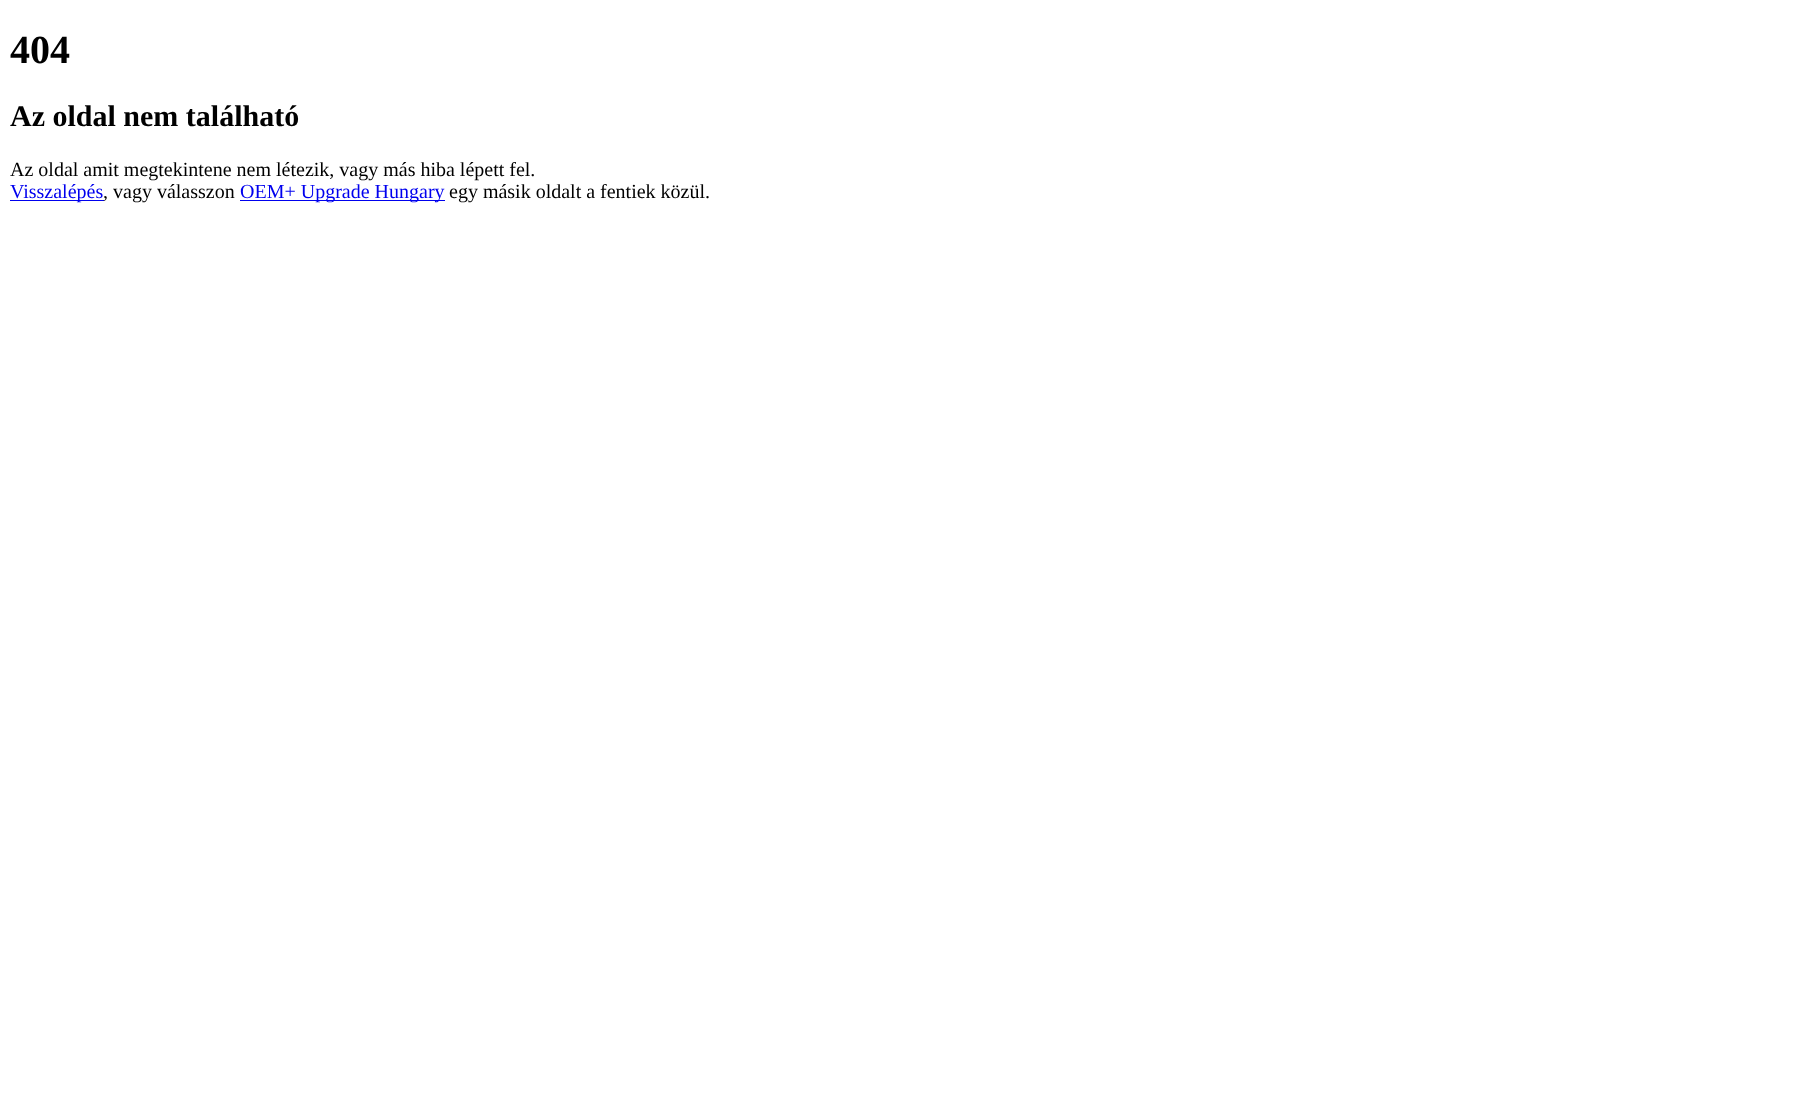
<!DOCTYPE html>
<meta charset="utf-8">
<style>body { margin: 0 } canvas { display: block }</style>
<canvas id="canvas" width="1794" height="1096"></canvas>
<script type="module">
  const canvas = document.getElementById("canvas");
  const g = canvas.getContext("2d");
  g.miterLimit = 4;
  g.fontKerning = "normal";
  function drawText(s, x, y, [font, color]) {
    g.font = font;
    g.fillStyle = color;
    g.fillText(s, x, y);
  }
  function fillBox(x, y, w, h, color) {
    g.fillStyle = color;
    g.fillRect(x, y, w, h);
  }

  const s1 = ["bold 40px Liberation Serif", "#000000"];
  const s2 = ["bold 30px Liberation Serif", "#000000"];
  const s3 = ["20px Liberation Serif", "#000000"];
  const s4 = ["20px Liberation Serif", "#0000EE"];

  fillBox(0, 0, 1794, 1096, "#FFFFFF");
  drawText("404", 10, 63, s1);
  drawText("Az oldal nem található", 10, 126, s2);
  drawText("Az oldal amit megtekintene nem létezik, vagy más hiba lépett fel.", 10, 176, s3);
  fillBox(10, 200, 94, 1, "#0000EE");
  drawText("Visszalépés", 10, 198, s4);
  drawText(", vagy válasszon", 103, 198, s3);
  fillBox(240, 200, 205, 1, "#0000EE");
  drawText("OEM+ Upgrade Hungary", 240, 198, s4);
  drawText("egy másik oldalt a fentiek közül.", 449, 198, s3);
</script>
